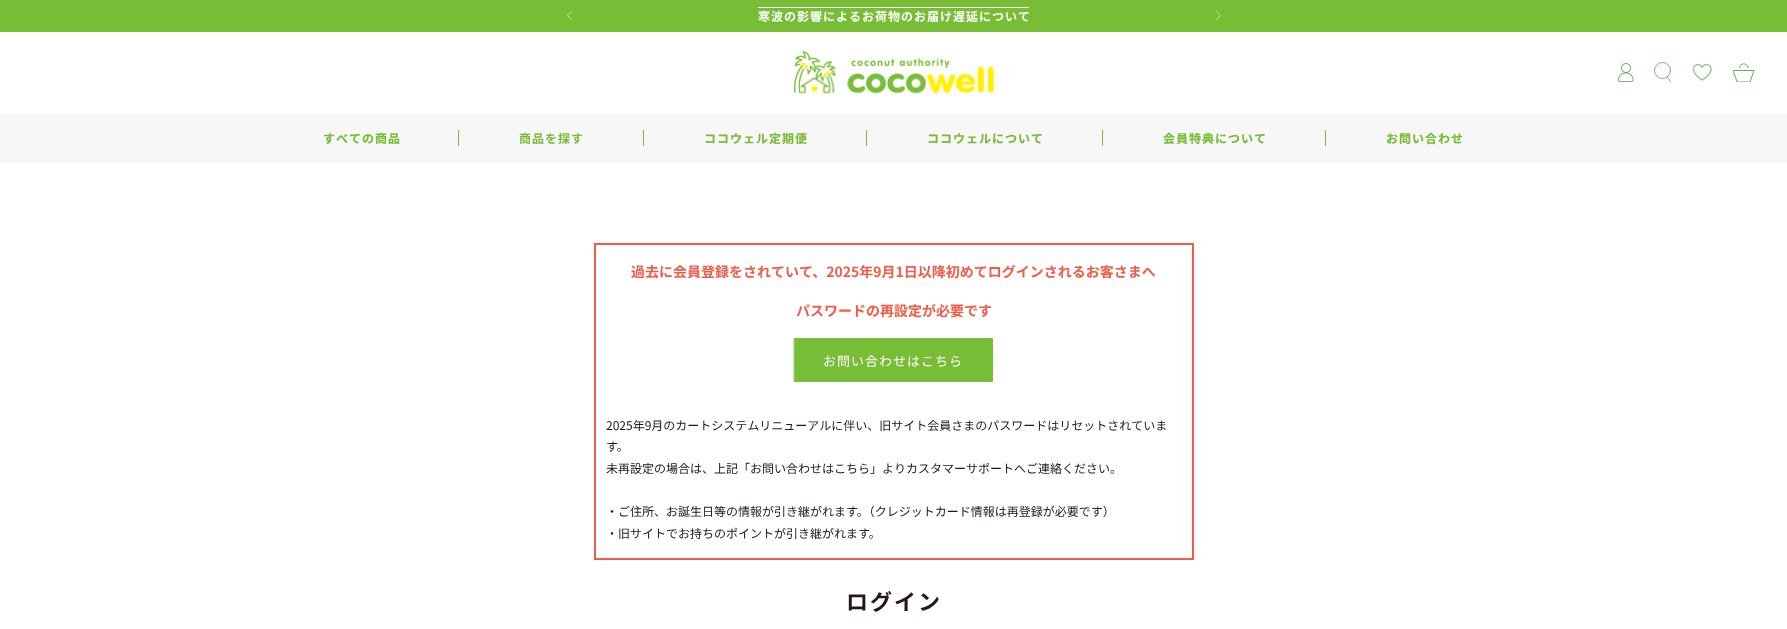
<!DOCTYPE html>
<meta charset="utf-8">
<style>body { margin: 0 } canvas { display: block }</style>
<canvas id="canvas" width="1787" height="629"></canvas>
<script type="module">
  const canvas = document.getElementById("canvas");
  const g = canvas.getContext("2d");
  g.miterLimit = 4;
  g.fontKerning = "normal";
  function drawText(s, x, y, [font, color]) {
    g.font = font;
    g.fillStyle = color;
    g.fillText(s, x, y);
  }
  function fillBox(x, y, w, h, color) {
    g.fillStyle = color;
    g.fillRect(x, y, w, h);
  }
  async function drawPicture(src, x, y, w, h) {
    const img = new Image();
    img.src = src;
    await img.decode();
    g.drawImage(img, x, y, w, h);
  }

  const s1 = ["bold 12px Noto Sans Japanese", "#FFFFFF"];
  const s2 = ["800 12px Noto Sans JP", "#78BD36"];
  const s3 = ["bold 12px Noto Sans Japanese", "#78BD36"];
  const s4 = ["bold 14px Noto Sans Japanese", "#F15B47"];
  const s5 = ["13px Noto Sans Japanese", "#FFFFFF"];
  const s6 = ["12px Noto Sans Japanese", "#231815"];
  const s7 = ["bold 22px Noto Sans Japanese", "#231815"];

  fillBox(0, 0, 1787, 629, "#FFFFFF");
  fillBox(0, 0, 1787, 32, "#78BD36");
  g.beginPath();
  g.moveTo(571.5, 11.5);
  g.lineTo(567.5, 15.5);
  g.lineTo(571.5, 19.5);
  g.strokeStyle = "#FFFFFF";
  g.lineWidth = 0.5;
  g.lineCap = "square";
  g.stroke();
  g.letterSpacing = "1px";
  drawText("寒波の影響によるお荷物のお届け遅延について", 758, 21, s1);
  fillBox(758, 7, 271, 1, "#FFFFFF");
  g.beginPath();
  g.moveTo(1216.5, 19.5);
  g.lineTo(1220.5, 15.5);
  g.lineTo(1216.5, 11.5);
  g.stroke();
  await drawPicture("pic1.png", 794, 51, 200, 43);
  await drawPicture("pic2.png", 1618, 63, 16, 19);
  g.beginPath();
  g.arc(1662.5, 70.5, 8, 0, Math.PI * 2);
  g.strokeStyle = "#68AB5C";
  g.lineWidth = 0.9;
  g.stroke();
  g.beginPath();
  g.moveTo(1667.5, 77);
  g.lineTo(1670.5, 81.5);
  g.lineCap = "round";
  g.stroke();
  await drawPicture("pic3.png", 1692, 63, 20, 18);
  g.save();
  g.beginPath();
  g.rect(1733, 63, 22, 19);
  g.clip();
  g.beginPath();
  g.moveTo(1733.5, 70.5);
  g.lineTo(1754, 70.5);
  g.lineTo(1750, 82);
  g.lineTo(1737.5, 82);
  g.closePath();
  g.moveTo(1748, 67.5);
  g.bezierCurveTo(1748, 62.5, 1739.5, 62.5, 1739.5, 67.5);
  g.lineWidth = 1;
  g.lineJoin = "round";
  g.stroke();
  g.restore();
  fillBox(0, 113, 1787, 50, "#F7F7F7");
  drawText("すべての商品", 323, 143, s2);
  fillBox(458, 130, 1, 16, "#78BD36");
  drawText("商品を探す", 519, 143, s3);
  fillBox(643, 130, 1, 16, "#78BD36");
  drawText("ココウェル定期便", 704, 143, s2);
  fillBox(866, 130, 1, 16, "#78BD36");
  drawText("ココウェルについて", 927, 143, s2);
  fillBox(1102, 130, 1, 16, "#78BD36");
  drawText("会員特典について", 1163, 143, s2);
  fillBox(1325, 130, 1, 16, "#78BD36");
  drawText("お問い合わせ", 1386, 143, s2);
  g.strokeStyle = "#F15B47";
  g.lineWidth = 2;
  g.strokeRect(595, 244, 598, 315);
  g.letterSpacing = "0px";
  drawText("過去に会員登録をされていて、2025年9月1日以降初めてログインされるお客さまへ", 631, 277, s4);
  drawText("パスワードの再設定が必要です", 796, 316, s4);
  g.fillStyle = "#78BD36";
  g.beginPath();
  g.rect(794.5, 338.5, 198, 43);
  g.fill();
  g.strokeStyle = "#78BD36";
  g.lineWidth = 1;
  g.stroke();
  g.letterSpacing = "1px";
  drawText("お問い合わせはこちら", 823, 366, s5);
  g.letterSpacing = "0px";
  drawText("2025年9月のカートシステムリニューアルに伴い、旧サイト会員さまのパスワードはリセットされていま", 606, 430, s6);
  drawText("す。", 606, 451, s6);
  drawText("未再設定の場合は、上記「お問い合わせはこちら」よりカスタマーサポートへご連絡ください。", 606, 473, s6);
  drawText("・ご住所、お誕生日等の情報が引き継がれます。（クレジットカード情報は再登録が必要です）", 606, 516, s6);
  drawText("・旧サイトでお持ちのポイントが引き継がれます。", 606, 538, s6);
  g.letterSpacing = "2px";
  drawText("ログイン", 846, 610, s7);
</script>
